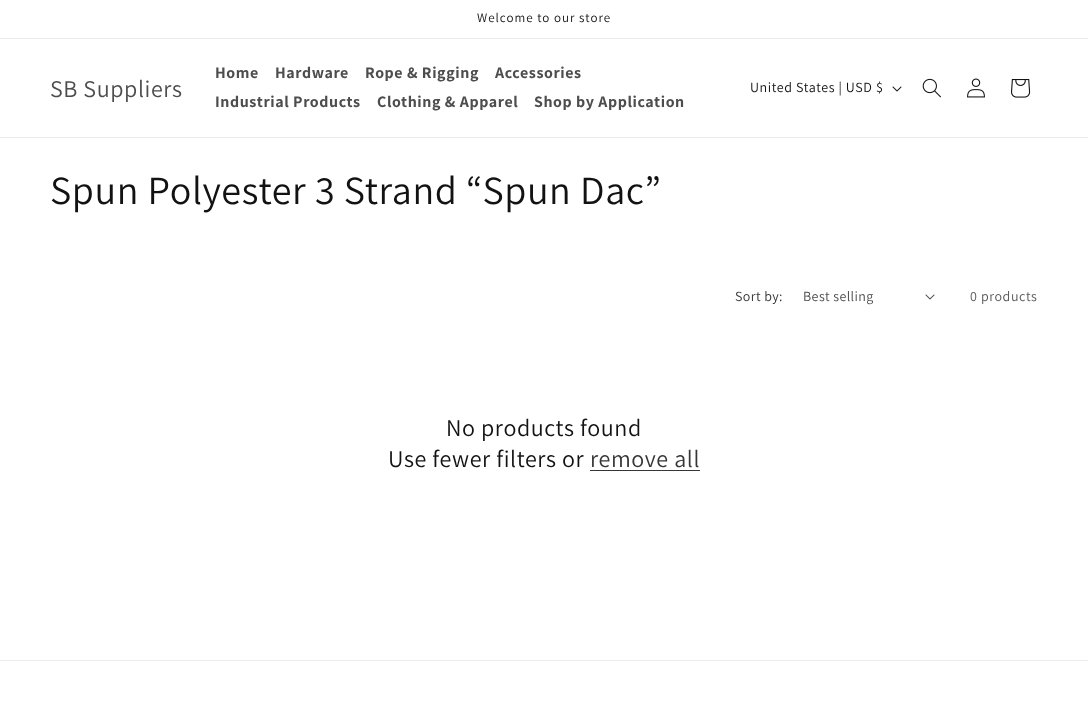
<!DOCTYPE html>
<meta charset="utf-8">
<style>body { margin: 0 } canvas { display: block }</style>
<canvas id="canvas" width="1088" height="722"></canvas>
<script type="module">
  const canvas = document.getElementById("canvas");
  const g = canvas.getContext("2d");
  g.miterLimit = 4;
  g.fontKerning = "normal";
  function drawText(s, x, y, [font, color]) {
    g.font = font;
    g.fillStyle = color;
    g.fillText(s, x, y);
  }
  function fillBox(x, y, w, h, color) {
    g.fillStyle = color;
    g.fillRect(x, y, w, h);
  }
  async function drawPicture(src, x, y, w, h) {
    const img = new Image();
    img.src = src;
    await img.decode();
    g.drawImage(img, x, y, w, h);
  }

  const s1 = ["13px Assistant", "#121212"];
  const s2 = ["24px Assistant", "#4D4D4D"];
  const s3 = ["bold 16px Assistant", "#4D4D4D"];
  const s4 = ["14px Assistant", "#121212"];
  const s5 = ["40px Assistant", "#121212"];
  const s6 = ["14px Assistant", "#363636"];
  const s7 = ["14px Assistant", "#4D4D4D"];
  const s8 = ["14px Assistant", "#595959"];
  const s9 = ["24px Assistant", "#121212"];
  const s10 = ["24px Assistant", "#363636"];

  fillBox(0, 0, 1088, 722, "#FFFFFF");
  fillBox(0, 38, 1088, 1, "#ECECEC");
  g.letterSpacing = "1px";
  drawText("Welcome to our store", 477, 22, s1);
  fillBox(0, 137, 1088, 1, "#ECECEC");
  g.letterSpacing = "0.6px";
  drawText("SB Suppliers", 50, 97, s2);
  drawText("Home", 215, 78, s3);
  drawText("Hardware", 275, 78, s3);
  drawText("Rope & Rigging", 365, 78, s3);
  drawText("Accessories", 495, 78, s3);
  drawText("Industrial Products", 215, 107, s3);
  drawText("Clothing & Apparel", 377, 107, s3);
  drawText("Shop by Application", 534, 107, s3);
  drawText("United States | USD $", 750, 92, s4);
  await drawPicture("pic1.png", 892, 86, 10, 6);
  await drawPicture("pic2.png", 922, 78, 19, 20);
  await drawPicture("pic3.png", 967, 78, 18, 20);
  await drawPicture("pic4.png", 1011, 79, 20, 19);
  drawText("Spun Polyester 3 Strand “Spun Dac”", 50, 204, s5);
  g.letterSpacing = "0.4px";
  drawText("Sort by:", 735, 301, s6);
  drawText("Best selling", 803, 301, s7);
  await drawPicture("pic5.png", 925, 294, 10, 6);
  g.letterSpacing = "0.6px";
  drawText("0 products", 970, 301, s8);
  drawText("No products found", 446, 436, s9);
  drawText("Use fewer filters or", 388, 467, s9);
  drawText("remove all", 590, 467, s10);
  fillBox(590, 470, 110, 1, "#363636");
  fillBox(0, 660, 1088, 1, "#ECECEC");
</script>
